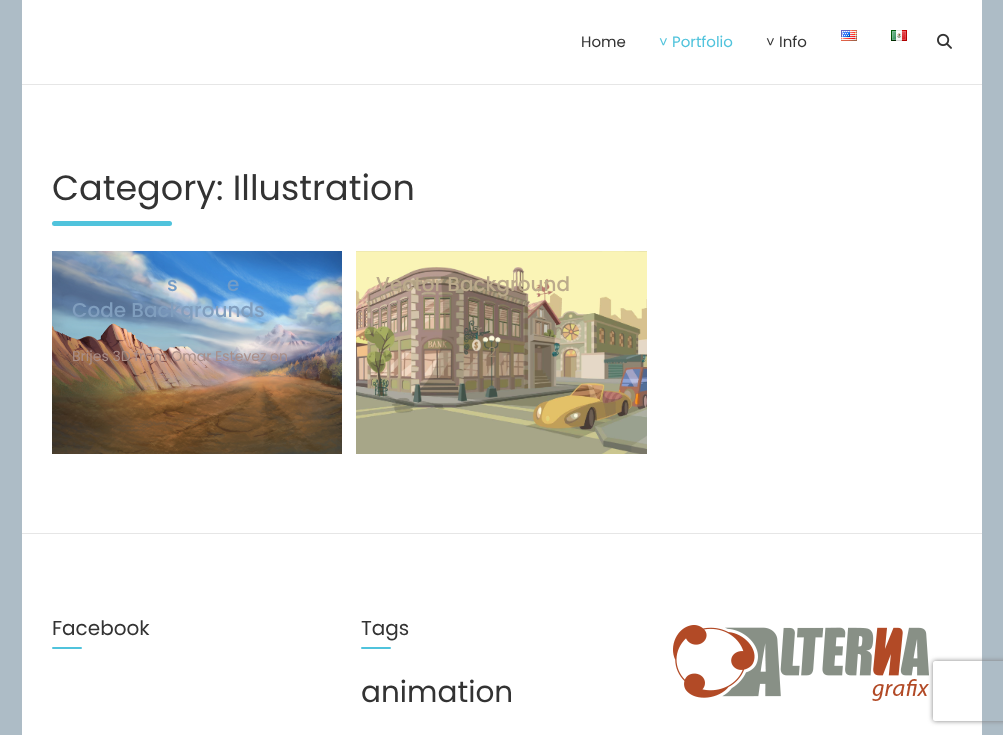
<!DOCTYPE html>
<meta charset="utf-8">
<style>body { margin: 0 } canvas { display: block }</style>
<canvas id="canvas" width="1003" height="735"></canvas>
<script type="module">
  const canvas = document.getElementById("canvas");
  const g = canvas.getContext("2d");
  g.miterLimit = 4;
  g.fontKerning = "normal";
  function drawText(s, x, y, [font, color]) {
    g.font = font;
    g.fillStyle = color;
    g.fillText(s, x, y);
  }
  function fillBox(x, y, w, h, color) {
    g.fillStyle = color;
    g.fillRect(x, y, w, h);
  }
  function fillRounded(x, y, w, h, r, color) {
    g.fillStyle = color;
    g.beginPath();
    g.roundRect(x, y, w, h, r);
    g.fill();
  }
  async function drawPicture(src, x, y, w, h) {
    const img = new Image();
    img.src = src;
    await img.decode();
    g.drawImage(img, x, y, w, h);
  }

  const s1 = ["15px Poppins", "#333333"];
  const s2 = ["15px Liberation Sans", "#50C3DC"];
  const s3 = ["15px Poppins", "#50C3DC"];
  const s4 = ["15px Liberation Sans", "#333333"];
  const s5 = ["35px Poppins", "#333333"];
  const s6 = ["500 20px Poppins", "#729CC7"];
  const s7 = ["500 20px Poppins", "#809EBE"];
  const s8 = ["14px Poppins", "#A98E88"];
  const s9 = ["14px Poppins", "#7D6542"];
  const s10 = ["500 20px Poppins", "#BBAA8B"];
  const s11 = ["14px Poppins", "#9A8B76"];
  const s12 = ["14px Poppins", "#9B8A6F"];
  const s13 = ["20px Poppins", "#333333"];
  const s14 = ["29.5px Poppins", "#333333"];

  fillBox(0, 0, 1003, 735, "#ADBCC6");
  fillBox(22, 0, 960, 735, "#FFFFFF");
  fillBox(22, 84, 960, 1, "#E6E6E6");
  drawText("Home", 581, 47, s1);
  drawText("˅", 659, 47, s2);
  drawText("Portfolio", 672, 47, s3);
  drawText("˅", 766, 47, s4);
  drawText("Info", 779, 47, s1);
  await drawPicture("pic1.png", 841, 30, 16, 11);
  await drawPicture("pic2.png", 891, 30, 16, 11);
  await drawPicture("pic3.png", 937, 33, 15, 16);
  drawText("Category: Illustration", 52, 200, s5);
  fillRounded(52, 221, 120, 5, 2.5, "#50C3DC");
  await drawPicture("pic4.png", 52, 251, 290, 203);
  drawText("s", 167, 291, s6);
  drawText("e", 227, 291, s6);
  drawText("Code Backgrounds", 72, 317, s7);
  drawText("Brijes 3D from Omar Estevez on", 72, 361, s8);
  drawText(".", 116, 383, s9);
  await drawPicture("pic5.png", 356, 251, 291, 203);
  drawText("Vector Background", 376, 291, s10);
  drawText("r", 477, 335, s11);
  drawText("n", 554, 335, s11);
  drawText("2", 488, 357, s12);
  fillBox(22, 533, 960, 1, "#E6E6E6");
  drawText("Facebook", 52, 635, s13);
  fillRounded(52, 647, 30, 2, 1, "#50C3DC");
  drawText("Tags", 361, 635, s13);
  fillRounded(361, 647, 30, 2, 1, "#50C3DC");
  drawText("animation", 361, 702, s14);
  await drawPicture("pic6.png", 673, 625, 256, 76);
  g.save();
  g.beginPath();
  g.moveTo(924, 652);
  g.lineTo(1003, 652);
  g.lineTo(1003, 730);
  g.lineTo(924, 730);
  g.closePath();
  g.moveTo(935, 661);
  g.lineTo(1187, 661);
  g.bezierCurveTo(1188, 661, 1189, 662, 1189, 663);
  g.lineTo(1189, 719);
  g.bezierCurveTo(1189, 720, 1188, 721, 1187, 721);
  g.lineTo(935, 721);
  g.bezierCurveTo(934, 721, 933, 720, 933, 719);
  g.lineTo(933, 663);
  g.bezierCurveTo(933, 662, 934, 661, 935, 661);
  g.closePath();
  g.clip("evenodd");
  g.fillStyle = "#808080";
  g.filter = "blur(2.5px)";
  g.beginPath();
  g.roundRect(933, 661, 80, 60, 2);
  g.fill();
  g.filter = "none";
  g.restore();
</script>
